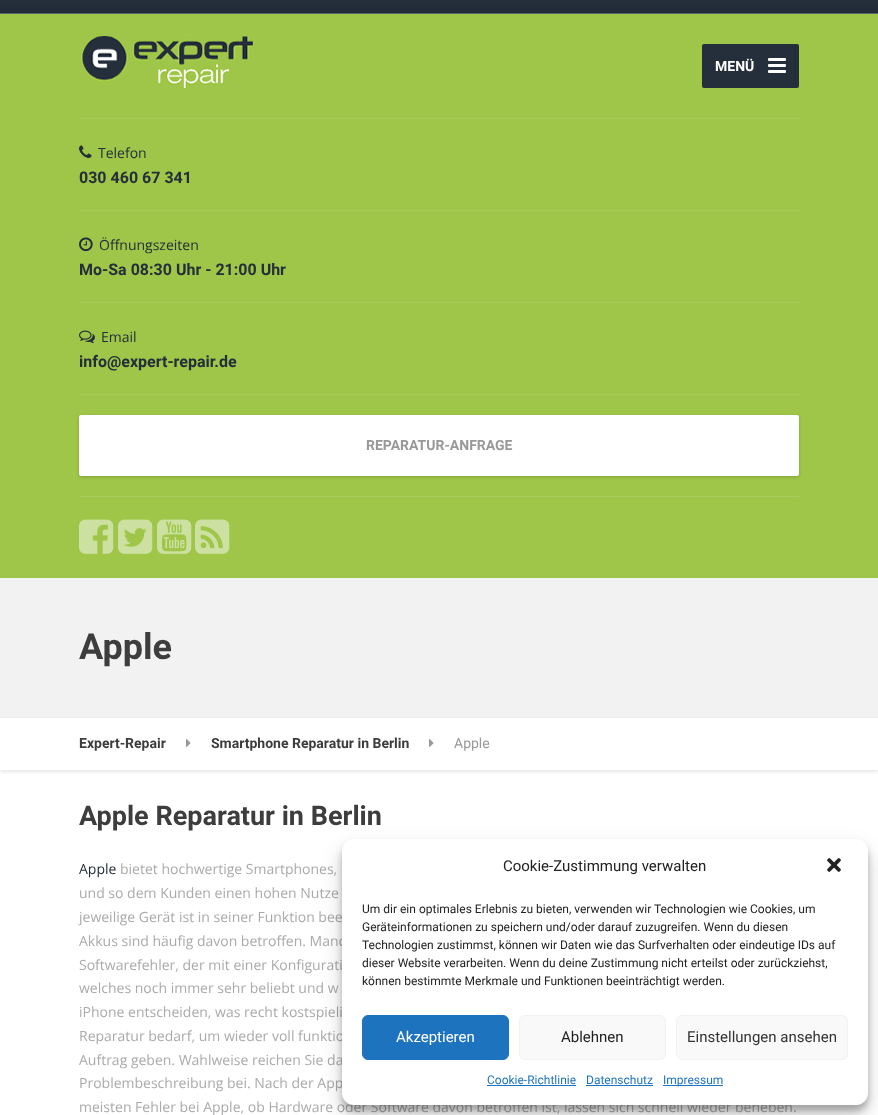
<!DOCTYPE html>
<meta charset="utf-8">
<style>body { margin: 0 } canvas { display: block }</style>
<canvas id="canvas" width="878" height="1115"></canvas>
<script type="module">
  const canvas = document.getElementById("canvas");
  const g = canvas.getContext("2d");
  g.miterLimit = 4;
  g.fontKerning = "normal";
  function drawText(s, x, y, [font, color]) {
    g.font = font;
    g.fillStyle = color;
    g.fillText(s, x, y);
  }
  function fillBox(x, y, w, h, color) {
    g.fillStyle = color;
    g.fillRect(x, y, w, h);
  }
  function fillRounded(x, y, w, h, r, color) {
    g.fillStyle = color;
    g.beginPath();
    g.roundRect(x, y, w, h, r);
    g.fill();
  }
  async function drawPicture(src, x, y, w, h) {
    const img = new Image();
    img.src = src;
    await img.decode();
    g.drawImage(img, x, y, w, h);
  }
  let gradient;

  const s1 = ["bold 14px Roboto", "#FFFFFF"];
  const s2 = ["14px Open Sans", "#252E3B"];
  const s3 = ["bold 16px Roboto", "#252E3B"];
  const s4 = ["bold 14px Roboto", "#999999"];
  const s5 = ["bold 36px Roboto", "#3D3D3D"];
  const s6 = ["bold 14px Roboto", "#3D3D3D"];
  const s7 = ["14px Roboto", "#999999"];
  const s8 = ["bold 27px Roboto", "#3D3D3D"];
  const s9 = ["14px Open Sans", "#AAAAAA"];
  const s10 = ["15px Roboto", "#222222"];
  const s11 = ["12px Roboto", "#222222"];
  const s12 = ["15px Roboto", "#FFFFFF"];
  const s13 = ["15px Roboto", "#333333"];
  const s14 = ["12px Roboto", "#1E73BE"];

  fillBox(0, 0, 878, 1115, "#FFFFFF");
  gradient = g.createLinearGradient(439, 0, 439, 13);
  gradient.addColorStop(0, "#252E3B");
  gradient.addColorStop(1, "#222B38");
  g.fillStyle = gradient;
  g.fillRect(0, 0, 878, 13);
  fillBox(0, 13, 878, 1, "#58616E");
  fillBox(0, 14, 878, 564, "#9FC648");
  await drawPicture("pic1.png", 81, 34, 173, 55);
  fillRounded(702, 44, 97, 44, 2, "#252E3B");
  drawText("MENÜ", 715, 71, s1);
  fillRounded(768, 58, 18, 3, 1, "#FFFFFF");
  fillRounded(768, 64, 18, 3, 1, "#FFFFFF");
  fillRounded(768, 70, 18, 3, 1, "#FFFFFF");
  fillBox(79, 118, 720, 1, "#A8CB5A");
  await drawPicture("pic2.png", 79, 145, 13, 13);
  drawText("Telefon", 98, 158, s2);
  drawText("030 460 67 341", 79, 183, s3);
  fillBox(79, 210, 720, 1, "#A8CB5A");
  await drawPicture("pic3.png", 79, 237, 14, 15);
  drawText("Öffnungszeiten", 99, 250, s2);
  drawText("Mo-Sa 08:30 Uhr - 21:00 Uhr", 79, 275, s3);
  fillBox(79, 302, 720, 1, "#A8CB5A");
  await drawPicture("pic4.png", 79, 330, 16, 14);
  drawText("Email", 101, 342, s2);
  drawText("info@expert-repair.de", 79, 367, s3);
  fillBox(79, 394, 720, 1, "#A8CB5A");
  g.fillStyle = "rgba(0, 0, 0, 0.2)";
  g.filter = "blur(1.5px)";
  g.beginPath();
  g.roundRect(79, 416, 720, 61, 2);
  g.fill();
  g.filter = "none";
  g.fillStyle = "#FFFFFF";
  g.beginPath();
  g.roundRect(80, 416, 718, 59, 1);
  g.fill();
  g.strokeStyle = "#FFFFFF";
  g.lineWidth = 2;
  g.stroke();
  drawText("REPARATUR-ANFRAGE", 366, 450, s4);
  fillBox(79, 496, 720, 1, "#A8CB5A");
  await drawPicture("pic5.png", 79, 519, 35, 35);
  await drawPicture("pic6.png", 118, 519, 35, 35);
  await drawPicture("pic7.png", 157, 519, 35, 35);
  await drawPicture("pic8.png", 195, 519, 35, 35);
  fillBox(0, 578, 878, 139, "#F2F2F2");
  fillBox(0, 717, 878, 1, "#EEEEEE");
  drawText("Apple", 79, 659, s5);
  g.save();
  g.beginPath();
  g.rect(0, 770, 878, 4);
  g.clip();
  g.fillStyle = "rgba(0, 0, 0, 0.1)";
  g.filter = "blur(2px)";
  g.beginPath();
  g.rect(0, 720, 878, 52);
  g.fill();
  g.filter = "none";
  g.restore();
  drawText("Expert-Repair", 79, 748, s6);
  await drawPicture("pic9.png", 186, 739, 5, 8);
  drawText("Smartphone Reparatur in Berlin", 211, 748, s6);
  await drawPicture("pic9.png", 429, 739, 5, 8);
  drawText("Apple", 454, 748, s7);
  drawText("Apple Reparatur in Berlin", 79, 825, s8);
  drawText("Apple", 79, 874, s2);
  drawText("bietet hochwertige Smartphones,", 120, 874, s9);
  drawText("und so dem Kunden einen hohen Nutze", 79, 898, s9);
  drawText("jeweilige Gerät ist in seiner Funktion bee", 79, 922, s9);
  drawText("Akkus sind häufig davon betroffen. Manc", 79, 946, s9);
  drawText("Softwarefehler, der mit einer Konfigurati", 79, 970, s9);
  drawText("welches noch immer sehr beliebt und w", 79, 993, s9);
  drawText("iPhone entscheiden, was recht kostspieli", 79, 1017, s9);
  drawText("Reparatur bedarf, um wieder voll funktio", 79, 1041, s9);
  drawText("Auftrag geben. Wahlweise reichen Sie da", 79, 1065, s9);
  drawText("Problembeschreibung bei. Nach der App", 79, 1088, s9);
  drawText("meisten Fehler bei Apple, ob Hardware oder Software davon betroffen ist, lassen sich schnell wieder beheben.", 79, 1112, s9);
  g.fillStyle = "rgba(0, 0, 0, 0.23)";
  g.filter = "blur(3px)";
  g.beginPath();
  g.roundRect(342, 845, 526, 266, 12);
  g.fill();
  g.filter = "none";
  g.fillStyle = "rgba(0, 0, 0, 0.19)";
  g.filter = "blur(10px)";
  g.beginPath();
  g.roundRect(342, 849, 526, 266, 12);
  g.fill();
  g.filter = "none";
  fillRounded(342, 839, 526, 266, 12, "#FFFFFF");
  drawText("Cookie-Zustimmung verwalten", 503, 871, s10);
  await drawPicture("pic10.png", 827, 858, 14, 14);
  drawText("Um dir ein optimales Erlebnis zu bieten, verwenden wir Technologien wie Cookies, um", 362, 913, s11);
  drawText("Geräteinformationen zu speichern und/oder darauf zuzugreifen. Wenn du diesen", 362, 931, s11);
  drawText("Technologien zustimmst, können wir Daten wie das Surfverhalten oder eindeutige IDs auf", 362, 949, s11);
  drawText("dieser Website verarbeiten. Wenn du deine Zustimmung nicht erteilst oder zurückziehst,", 362, 967, s11);
  drawText("können bestimmte Merkmale und Funktionen beeinträchtigt werden.", 362, 985, s11);
  g.fillStyle = "#1E73BE";
  g.beginPath();
  g.roundRect(362.5, 1015.5, 146, 44, 5.5);
  g.fill();
  g.strokeStyle = "#1E73BE";
  g.lineWidth = 1;
  g.stroke();
  drawText("Akzeptieren", 396, 1042, s12);
  g.fillStyle = "#F9F9F9";
  g.beginPath();
  g.roundRect(519.5, 1015.5, 146, 44, 5.5);
  g.fill();
  g.strokeStyle = "#F2F2F2";
  g.stroke();
  drawText("Ablehnen", 561, 1042, s10);
  g.fillStyle = "#F9F9F9";
  g.beginPath();
  g.roundRect(676.5, 1015.5, 171, 44, 5.5);
  g.fill();
  g.stroke();
  drawText("Einstellungen ansehen", 687, 1042, s13);
  drawText("Cookie-Richtlinie", 487, 1084, s14);
  fillBox(487, 1085, 89, 1, "#1E73BE");
  drawText("Datenschutz", 586, 1084, s14);
  fillBox(586, 1085, 67, 1, "#1E73BE");
  fillBox(663, 1085, 60, 1, "#1E73BE");
  drawText("Impressum", 663, 1084, s14);
</script>
